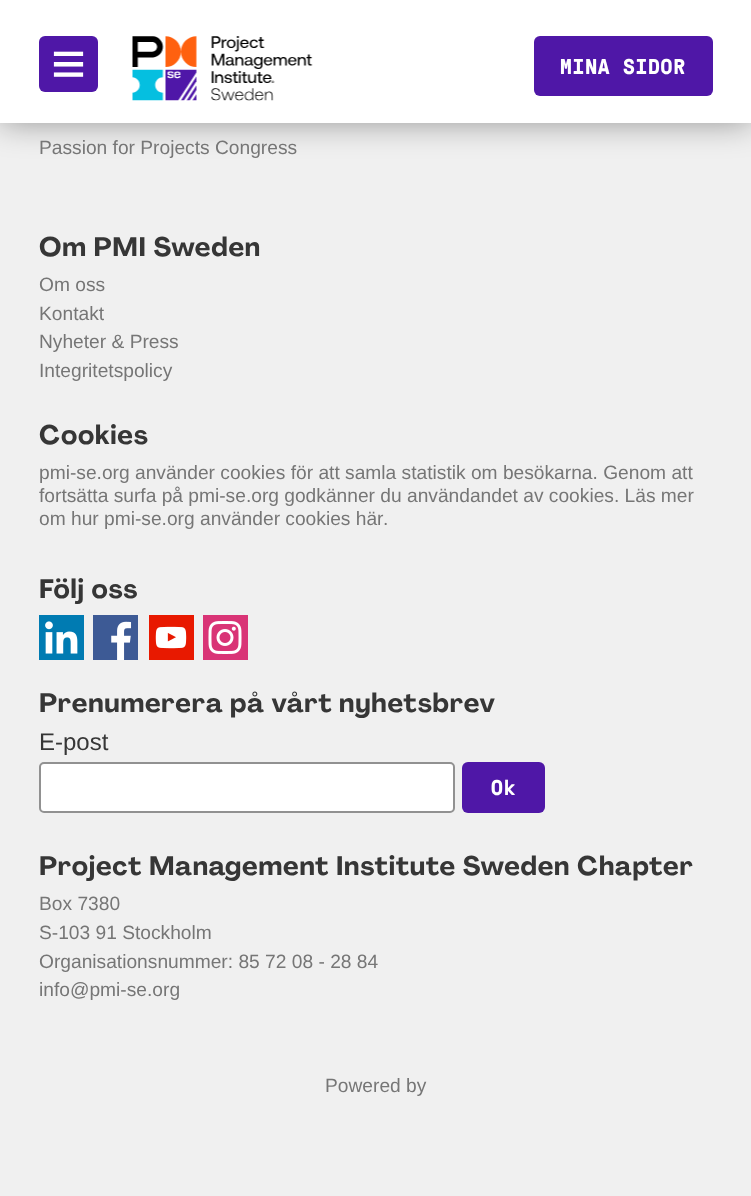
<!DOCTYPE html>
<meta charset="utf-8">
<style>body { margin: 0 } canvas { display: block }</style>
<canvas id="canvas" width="751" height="1196"></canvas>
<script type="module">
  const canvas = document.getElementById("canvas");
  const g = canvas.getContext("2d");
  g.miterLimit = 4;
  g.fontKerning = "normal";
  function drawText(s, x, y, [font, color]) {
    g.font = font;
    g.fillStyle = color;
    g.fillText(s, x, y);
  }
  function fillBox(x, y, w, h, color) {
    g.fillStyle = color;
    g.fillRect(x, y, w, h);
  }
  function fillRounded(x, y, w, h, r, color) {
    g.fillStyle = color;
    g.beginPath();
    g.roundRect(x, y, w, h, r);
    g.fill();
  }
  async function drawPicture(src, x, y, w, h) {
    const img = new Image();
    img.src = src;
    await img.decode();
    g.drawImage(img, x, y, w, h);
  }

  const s1 = ["60px Liberation Sans", "#FFFFFF"];
  const s2 = ["bold 21.5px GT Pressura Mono", "#FFFFFF"];
  const s3 = ["19.2px Liberation Sans", "#767676"];
  const s4 = ["bold 26.4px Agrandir", "#363636"];
  const s5 = ["24px Liberation Sans", "#363636"];

  fillBox(0, 0, 751, 1196, "#F0F0F0");
  g.fillStyle = "rgba(0, 0, 0, 0.4)";
  g.filter = "blur(16.5px)";
  g.beginPath();
  g.rect(0, -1, 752, 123);
  g.fill();
  g.filter = "none";
  fillBox(0, 0, 751, 123, "#FFFFFF");
  fillRounded(39, 36, 59, 56, 6, "#4F17A7");
  drawText("≡", 51, 84, s1);
  await drawPicture("pic1.png", 132, 36, 181, 65);
  fillRounded(534, 36, 179, 60, 6, "#4F17A7");
  g.letterSpacing = "0.75px";
  drawText("MINA SIDOR", 560, 74, s2);
  g.letterSpacing = "0px";
  drawText("Passion for Projects Congress", 39, 154, s3);
  g.letterSpacing = "0.75px";
  drawText("Om PMI Sweden", 39, 256, s4);
  g.letterSpacing = "0px";
  drawText("Om oss", 39, 291, s3);
  drawText("Kontakt", 39, 320, s3);
  drawText("Nyheter & Press", 39, 348, s3);
  drawText("Integritetspolicy", 39, 377, s3);
  g.letterSpacing = "0.75px";
  drawText("Cookies", 39, 444, s4);
  g.letterSpacing = "0px";
  drawText("pmi-se.org använder cookies för att samla statistik om besökarna. Genom att", 39, 479, s3);
  drawText("fortsätta surfa på pmi-se.org godkänner du användandet av cookies. Läs mer", 39, 502, s3);
  drawText("om hur pmi-se.org använder cookies här", 39, 525, s3);
  drawText(".", 383, 525, s3);
  g.letterSpacing = "0.75px";
  drawText("Följ oss", 39, 598, s4);
  await drawPicture("pic2.png", 39, 615, 45, 45);
  await drawPicture("pic3.png", 93, 615, 45, 45);
  await drawPicture("pic4.png", 149, 615, 45, 45);
  await drawPicture("pic5.png", 203, 615, 45, 45);
  drawText("Prenumerera på vårt nyhetsbrev", 39, 712, s4);
  g.letterSpacing = "0px";
  drawText("E-post", 39, 750, s5);
  g.fillStyle = "#FFFFFF";
  g.beginPath();
  g.roundRect(40, 763, 414, 49, 4);
  g.fill();
  g.strokeStyle = "#919191";
  g.lineWidth = 2;
  g.stroke();
  fillRounded(462, 762, 83, 51, 6, "#4F17A7");
  g.letterSpacing = "0.75px";
  drawText("Ok", 491, 795, s2);
  drawText("Project Management Institute Sweden Chapter", 39, 875, s4);
  g.letterSpacing = "0px";
  drawText("Box 7380", 39, 910, s3);
  drawText("S-103 91 Stockholm", 39, 939, s3);
  drawText("Organisationsnummer: 85 72 08 - 28 84", 39, 968, s3);
  drawText("info@pmi-se.org", 39, 996, s3);
  drawText("Powered by", 325, 1092, s3);
</script>
